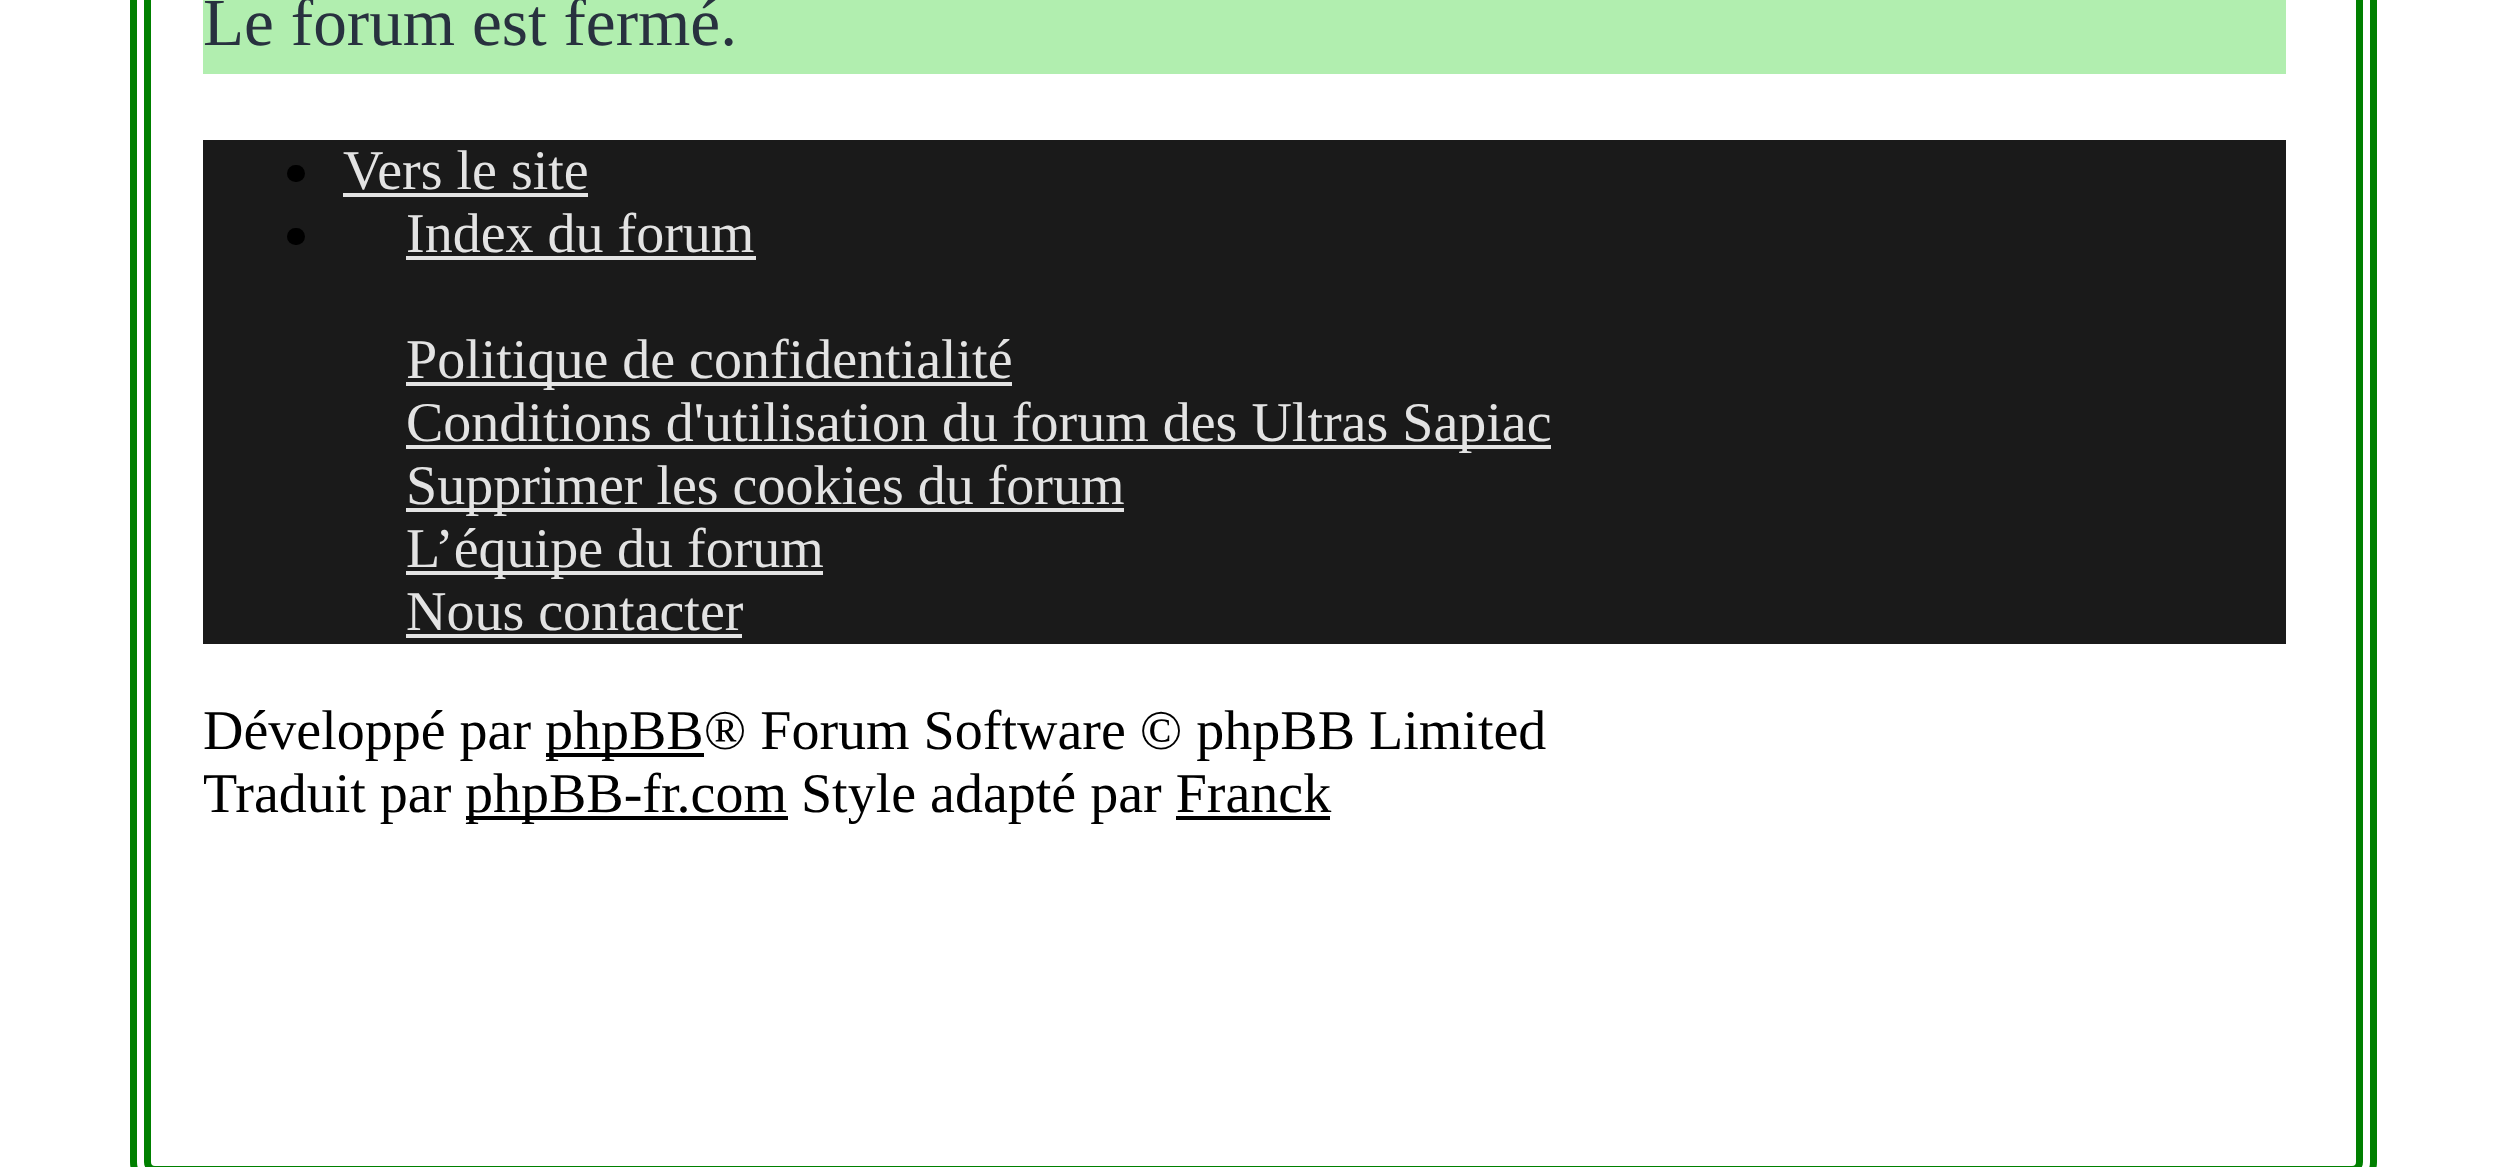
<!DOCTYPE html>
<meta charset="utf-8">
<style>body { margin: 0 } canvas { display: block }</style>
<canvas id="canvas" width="2506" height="1167"></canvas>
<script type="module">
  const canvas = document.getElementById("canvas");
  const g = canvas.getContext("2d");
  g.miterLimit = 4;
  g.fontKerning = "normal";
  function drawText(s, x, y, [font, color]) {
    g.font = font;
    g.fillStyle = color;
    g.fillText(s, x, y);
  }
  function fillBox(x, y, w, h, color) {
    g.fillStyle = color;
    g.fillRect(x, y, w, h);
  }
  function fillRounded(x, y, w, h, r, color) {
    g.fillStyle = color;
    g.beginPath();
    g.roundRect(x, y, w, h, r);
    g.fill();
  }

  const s1 = ["67.25px Liberation Serif", "#28313F"];
  const s2 = ["56px Liberation Serif", "#E3E3E3"];
  const s3 = ["56px Liberation Serif", "#000000"];

  fillBox(0, 0, 2506, 1167, "#FFFFFF");
  g.beginPath();
  g.roundRect(133.5, -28.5, 2240, 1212, 21.5);
  g.strokeStyle = "#008000";
  g.lineWidth = 7;
  g.stroke();
  g.beginPath();
  g.roundRect(147.5, -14.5, 2212, 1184, 7.5);
  g.stroke();
  fillBox(203, 0, 2083, 74, "#B1EEAF");
  drawText("Le forum est fermé.", 203, 45, s1);
  fillBox(203, 140, 2083, 504, "#1A1A1A");
  fillRounded(287, 165, 18, 17, 8.5, "#000000");
  drawText("Vers le site", 343, 189, s2);
  fillBox(343, 193, 245, 4, "#E3E3E3");
  fillRounded(287, 228, 18, 17, 8.5, "#000000");
  drawText("Index du forum", 406, 252, s2);
  fillBox(406, 256, 350, 4, "#E3E3E3");
  fillBox(406, 382, 606, 4, "#E3E3E3");
  drawText("Politique de confidentialité", 406, 378, s2);
  fillBox(406, 445, 1145, 4, "#E3E3E3");
  drawText("Conditions d'utilisation du forum des Ultras Sapiac", 406, 441, s2);
  fillBox(406, 508, 718, 4, "#E3E3E3");
  drawText("Supprimer les cookies du forum", 406, 504, s2);
  fillBox(406, 571, 417, 4, "#E3E3E3");
  drawText("L’équipe du forum", 406, 567, s2);
  drawText("Nous contacter", 406, 630, s2);
  fillBox(406, 634, 336, 4, "#E3E3E3");
  drawText("Développé par", 203, 749, s3);
  fillBox(546, 753, 158, 4, "#000000");
  drawText("phpBB® Forum Software © phpBB Limited", 545, 749, s3);
  drawText("Traduit par", 203, 812, s3);
  fillBox(466, 816, 322, 4, "#000000");
  drawText("phpBB-fr.com Style adapté par Franck", 465, 812, s3);
  fillBox(1176, 816, 154, 4, "#000000");
</script>
